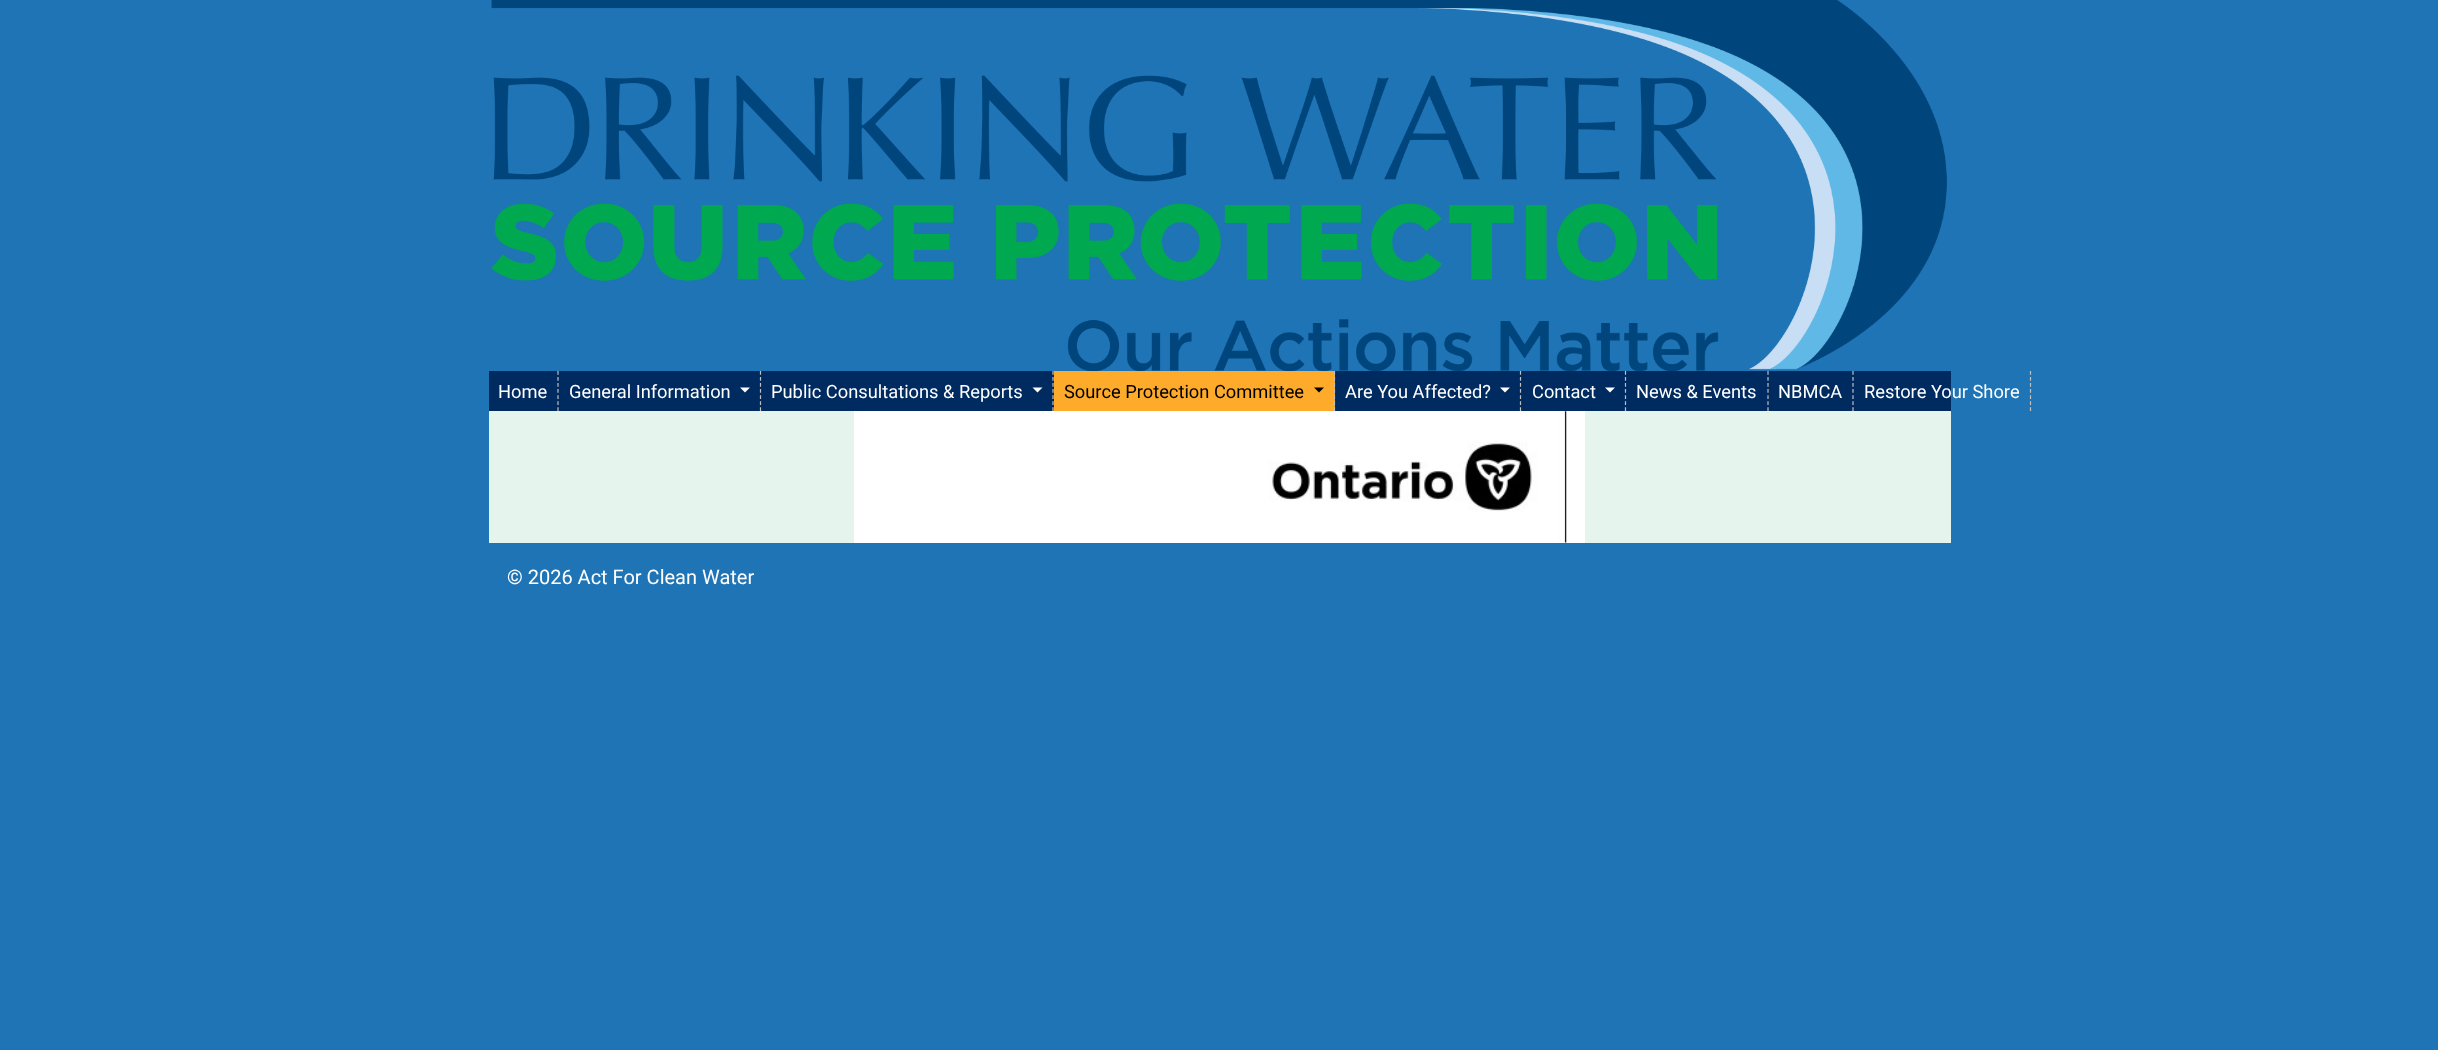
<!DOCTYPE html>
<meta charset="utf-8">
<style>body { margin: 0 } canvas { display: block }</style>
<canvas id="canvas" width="2438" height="1050"></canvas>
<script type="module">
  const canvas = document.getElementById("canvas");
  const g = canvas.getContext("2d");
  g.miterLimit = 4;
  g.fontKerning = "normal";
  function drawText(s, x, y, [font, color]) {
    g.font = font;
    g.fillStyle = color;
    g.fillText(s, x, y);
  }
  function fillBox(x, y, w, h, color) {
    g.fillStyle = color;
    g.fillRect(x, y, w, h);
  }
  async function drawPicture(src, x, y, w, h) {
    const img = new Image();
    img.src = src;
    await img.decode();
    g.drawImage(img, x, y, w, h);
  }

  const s1 = ["18.3px Roboto", "#FFFFFF"];
  const s2 = ["18.3px Roboto", "#000000"];
  const s3 = ["20px Roboto", "#FFFFFF"];

  fillBox(0, 0, 2438, 1050, "#1F74B5");
  await drawPicture("pic1.png", 491, 0, 1456, 371);
  fillBox(489, 371, 1462, 40, "#002B61");
  g.beginPath();
  g.moveTo(558, 371);
  g.lineTo(558, 411);
  g.strokeStyle = "#C0C0C0";
  g.lineWidth = 1.2;
  g.setLineDash([3.75, 2.29]);
  g.stroke();
  drawText("Home", 498, 398, s1);
  g.beginPath();
  g.moveTo(760.5, 371);
  g.lineTo(760.5, 411);
  g.stroke();
  drawText("General Information", 569, 398, s1);
  g.beginPath();
  g.moveTo(740, 387.5);
  g.lineTo(750, 387.5);
  g.lineTo(745, 392.5);
  g.closePath();
  g.fill();
  g.beginPath();
  g.moveTo(1053, 371);
  g.lineTo(1053, 411);
  g.stroke();
  drawText("Public Consultations & Reports", 771, 398, s1);
  g.beginPath();
  g.moveTo(1032.5, 387.5);
  g.lineTo(1042.5, 387.5);
  g.lineTo(1037.5, 392.5);
  g.closePath();
  g.fill();
  fillBox(1054, 371, 281, 40, "#FEAA2A");
  g.beginPath();
  g.moveTo(1334.5, 371);
  g.lineTo(1334.5, 411);
  g.stroke();
  drawText("Source Protection Committee", 1064, 398, s2);
  g.beginPath();
  g.moveTo(1314, 387.5);
  g.lineTo(1324, 387.5);
  g.lineTo(1319, 392.5);
  g.closePath();
  g.fill();
  g.beginPath();
  g.moveTo(1520.5, 371);
  g.lineTo(1520.5, 411);
  g.stroke();
  drawText("Are You Affected?", 1345, 398, s1);
  g.beginPath();
  g.moveTo(1500, 387.5);
  g.lineTo(1510, 387.5);
  g.lineTo(1505, 392.5);
  g.closePath();
  g.fill();
  g.beginPath();
  g.moveTo(1625.5, 371);
  g.lineTo(1625.5, 411);
  g.stroke();
  drawText("Contact", 1532, 398, s1);
  g.beginPath();
  g.moveTo(1605, 387.5);
  g.lineTo(1615, 387.5);
  g.lineTo(1610, 392.5);
  g.closePath();
  g.fill();
  g.beginPath();
  g.moveTo(1768, 371);
  g.lineTo(1768, 411);
  g.stroke();
  drawText("News & Events", 1636, 398, s1);
  g.beginPath();
  g.moveTo(1853, 371);
  g.lineTo(1853, 411);
  g.stroke();
  drawText("NBMCA", 1778, 398, s1);
  g.beginPath();
  g.moveTo(2030.5, 371);
  g.lineTo(2030.5, 411);
  g.stroke();
  drawText("Restore Your Shore", 1864, 398, s1);
  fillBox(854, 411, 731, 132, "#FFFFFF");
  fillBox(489, 411, 365, 132, "#E5F4ED");
  await drawPicture("pic2.png", 1269, 411, 298, 132);
  fillBox(1585, 411, 366, 132, "#E5F4ED");
  drawText("© 2026 Act For Clean Water", 507, 584, s3);
</script>
